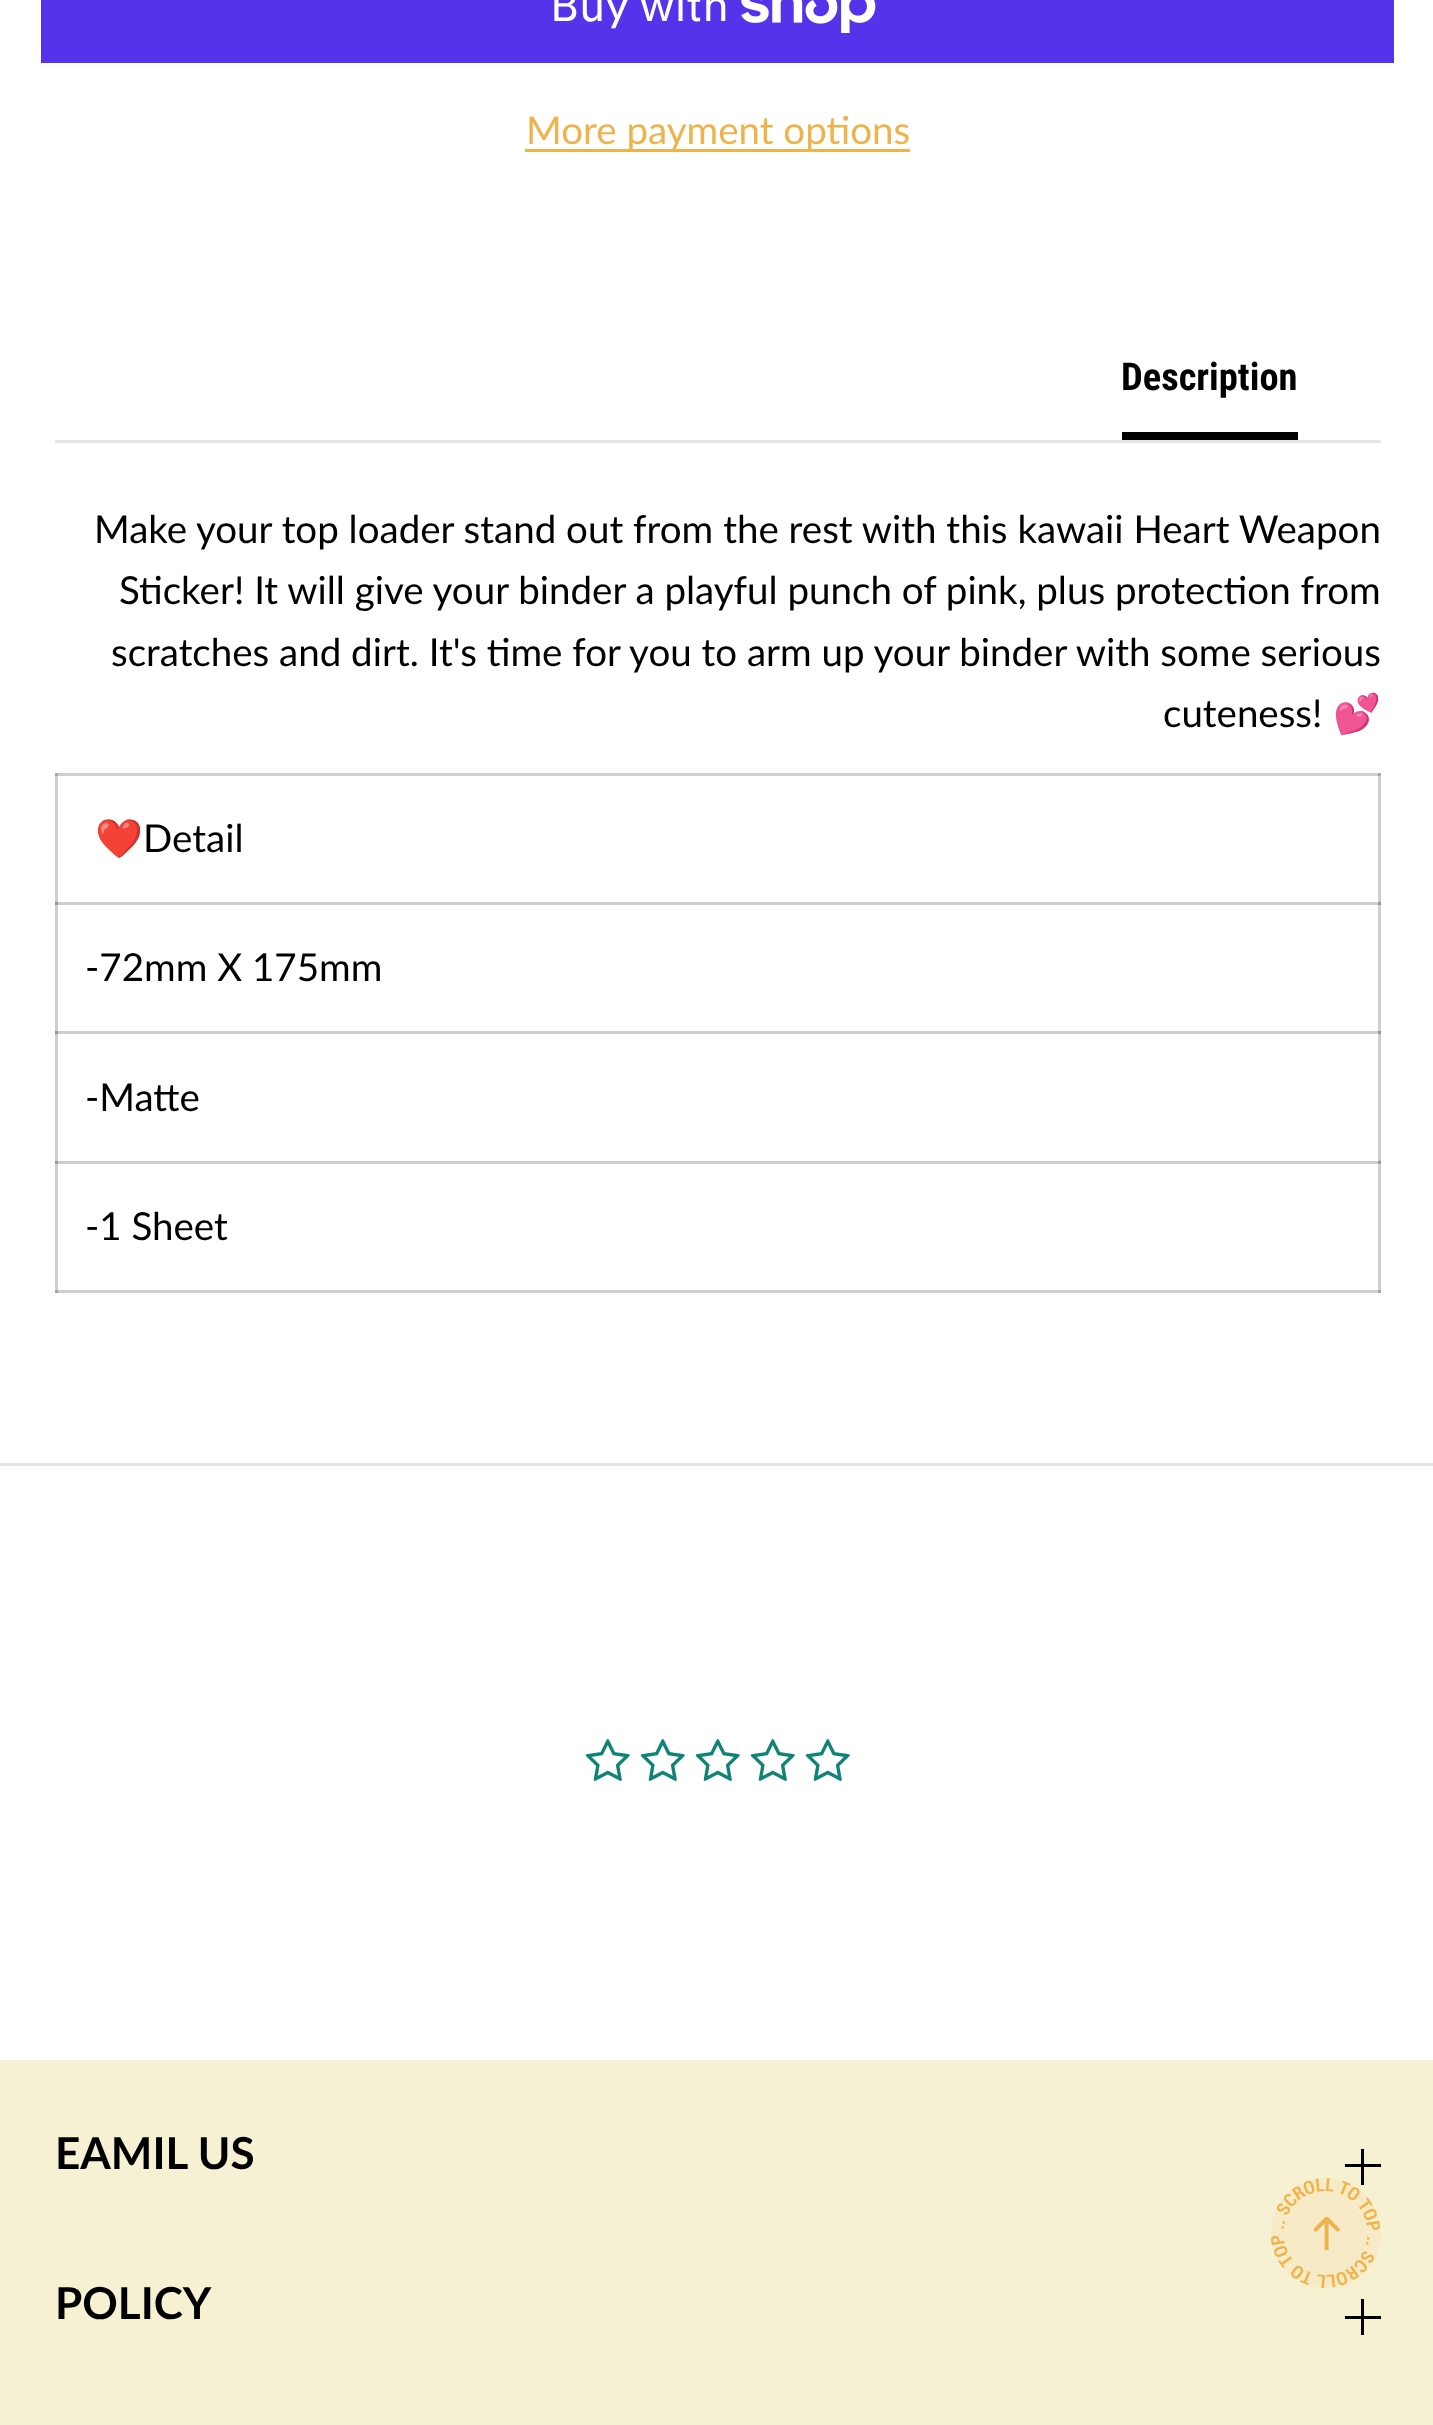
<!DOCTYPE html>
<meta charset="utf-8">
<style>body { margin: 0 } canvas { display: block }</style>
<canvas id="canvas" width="1433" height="2425"></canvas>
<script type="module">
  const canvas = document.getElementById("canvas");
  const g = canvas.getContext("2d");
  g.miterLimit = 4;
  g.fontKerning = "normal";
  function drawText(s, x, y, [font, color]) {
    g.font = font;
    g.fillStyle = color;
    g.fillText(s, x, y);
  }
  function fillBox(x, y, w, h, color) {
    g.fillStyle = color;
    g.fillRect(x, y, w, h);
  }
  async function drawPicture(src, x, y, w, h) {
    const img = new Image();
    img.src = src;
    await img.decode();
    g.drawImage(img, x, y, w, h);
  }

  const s1 = ["44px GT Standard", "#FFFFFF"];
  const s2 = ["38.5px Lato", "#EFB34C"];
  const s3 = ["bold 38.5px Roboto Condensed", "#000000"];
  const s4 = ["38.5px Lato", "#000000"];
  const s5 = ["38.5px Noto Color Emoji", "#000000"];
  const s6 = ["bold 44px Lato", "#000000"];

  fillBox(0, 0, 1433, 2425, "#FFFFFF");
  fillBox(55, 902, 1326, 3, "#CFCFCF");
  fillBox(55, 1031, 1326, 3, "#CFCFCF");
  fillBox(55, 1161, 1326, 3, "#CFCFCF");
  fillBox(55, 773, 3, 520, "#CFCFCF");
  fillBox(55, 902, 3, 3, "#969696");
  fillBox(55, 1031, 3, 3, "#969696");
  fillBox(55, 1163, 3, 1, "#A7A7A7");
  fillBox(55, 1161, 3, 2, "#969696");
  fillBox(55, 1290, 1326, 3, "#CFCFCF");
  fillBox(55, 1290, 3, 3, "#A7A7A7");
  fillBox(1378, 773, 3, 520, "#CFCFCF");
  fillBox(1378, 902, 3, 3, "#969696");
  fillBox(1378, 1031, 3, 3, "#969696");
  fillBox(1378, 1163, 3, 1, "#A7A7A7");
  fillBox(1378, 1161, 3, 2, "#969696");
  fillBox(1378, 1290, 3, 3, "#A7A7A7");
  fillBox(0, 1463, 1433, 3, "#E6E6E6");
  fillBox(41, 0, 1353, 63, "#5433EB");
  drawText("Buy with", 550, 21, s1);
  await drawPicture("pic1.png", 741, 0, 135, 33);
  fillBox(525, 149, 385, 3, "#EFB34C");
  drawText("More payment options", 526, 144, s2);
  fillBox(55, 440, 1326, 3, "#E6E6E6");
  drawText("Description", 1121, 390, s3);
  fillBox(1122, 432, 176, 8, "#000000");
  drawText("Make your top loader stand out from the rest with this kawaii Heart Weapon", 94, 543, s4);
  drawText("Sticker! It will give your binder a playful punch of pink, plus protection from", 119, 604, s4);
  drawText("scratches and dirt. It's time for you to arm up your binder with some serious", 111, 666, s4);
  drawText("cuteness!", 1163, 727, s4);
  drawText("💕", 1333, 727, s5);
  fillBox(55, 773, 1326, 3, "#CFCFCF");
  fillBox(55, 773, 3, 3, "#A7A7A7");
  fillBox(1378, 773, 3, 3, "#A7A7A7");
  drawText("❤️", 95, 852, s5);
  drawText("Detail", 143, 852, s4);
  drawText("-72mm X 175mm", 85, 981, s4);
  drawText("-Matte", 85, 1111, s4);
  drawText("-1 Sheet", 85, 1240, s4);
  await drawPicture("pic2.png", 585, 1739, 45, 42);
  await drawPicture("pic2.png", 640, 1739, 45, 42);
  await drawPicture("pic2.png", 695, 1739, 45, 42);
  await drawPicture("pic2.png", 750, 1739, 45, 42);
  await drawPicture("pic2.png", 805, 1739, 45, 42);
  fillBox(0, 2060, 1433, 365, "#F7F1D4");
  drawText("EAMIL US", 55, 2169, s6);
  fillBox(1361, 2149, 3, 36, "#000000");
  fillBox(1345, 2164, 36, 3, "#000000");
  drawText("POLICY", 55, 2319, s6);
  fillBox(1361, 2299, 3, 36, "#000000");
  fillBox(1345, 2316, 36, 3, "#000000");
  g.fillStyle = "#F6EBC6";
  g.beginPath();
  g.arc(1326, 2233, 55, 0, Math.PI * 2);
  g.fill();
  await drawPicture("pic4.png", 1313, 2217, 27, 33);
  await drawPicture("pic3.png", 1271, 2178, 109, 110);
</script>
